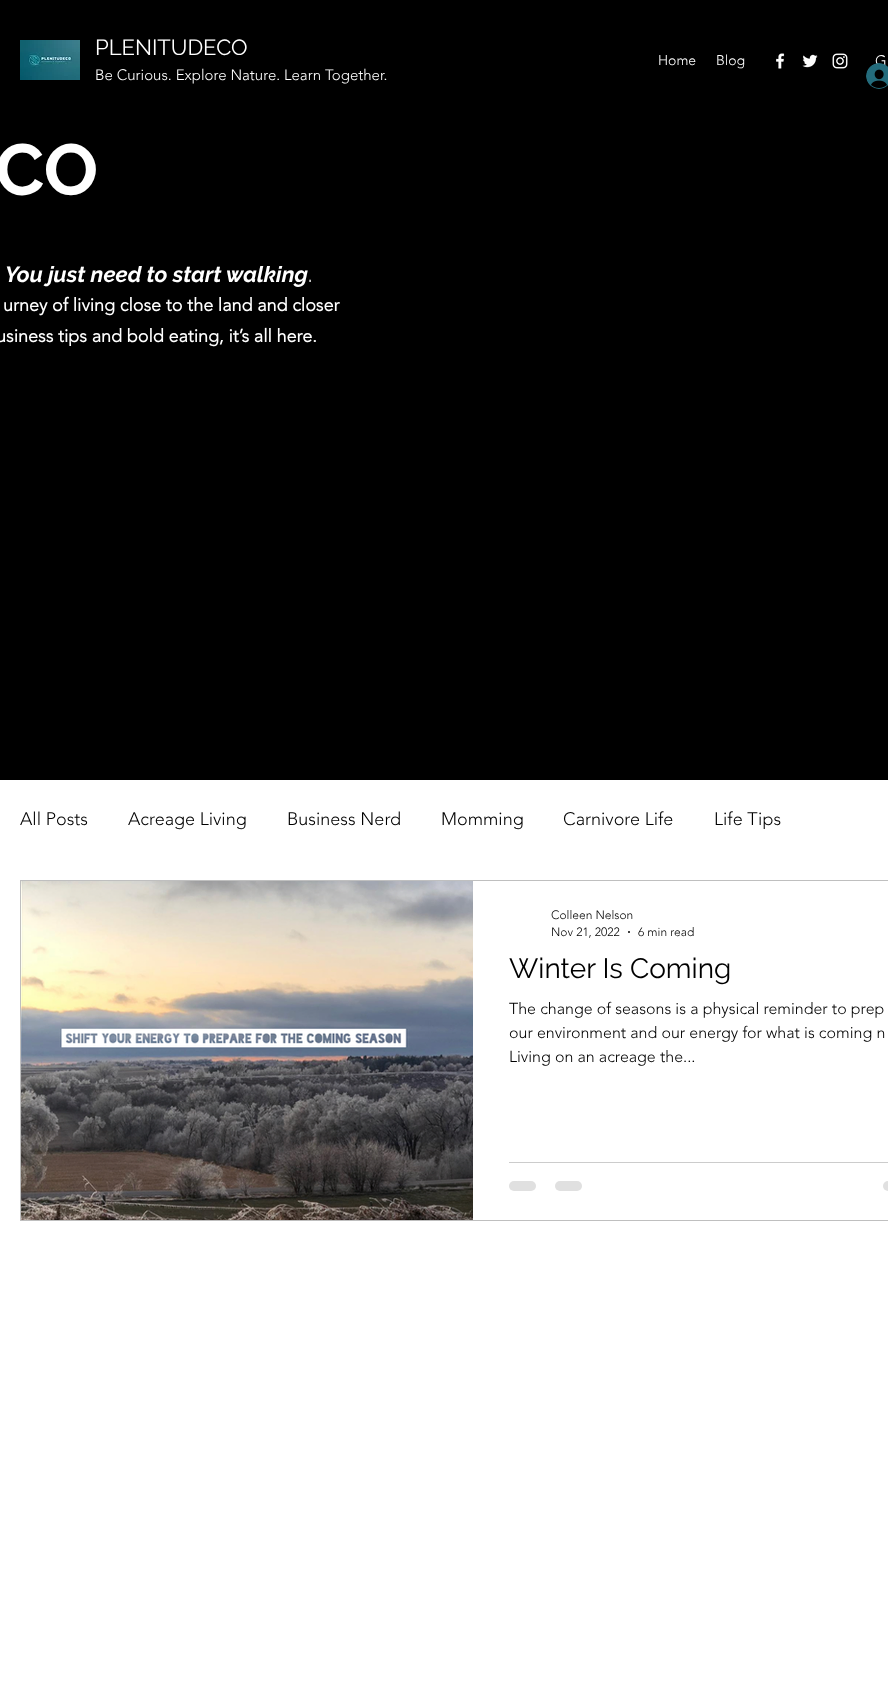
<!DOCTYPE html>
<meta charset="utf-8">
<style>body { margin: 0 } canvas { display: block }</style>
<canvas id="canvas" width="888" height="1689"></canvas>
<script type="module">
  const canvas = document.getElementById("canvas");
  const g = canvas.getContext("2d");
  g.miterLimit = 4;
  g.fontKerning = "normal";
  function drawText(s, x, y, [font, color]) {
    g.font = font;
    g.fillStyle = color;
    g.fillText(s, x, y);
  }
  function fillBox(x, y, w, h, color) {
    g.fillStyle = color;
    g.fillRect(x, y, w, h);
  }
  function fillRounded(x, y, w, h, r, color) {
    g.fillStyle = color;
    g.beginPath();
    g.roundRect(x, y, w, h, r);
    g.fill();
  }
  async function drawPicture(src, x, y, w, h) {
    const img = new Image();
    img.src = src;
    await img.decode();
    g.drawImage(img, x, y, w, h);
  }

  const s1 = ["22px Raleway", "#FFFFFF"];
  const s2 = ["300 15px 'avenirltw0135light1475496'", "#FFFFFF"];
  const s3 = ["300 14px 'avenirltw0135light1475496'", "#FFFFFF"];
  const s4 = ["bold 72px Raleway", "#FFFFFF"];
  const s5 = ["italic bold 22px Raleway", "#FFFFFF"];
  const s6 = ["bold 18px 'avenirltw0135light1475496'", "#FFFFFF"];
  const s7 = ["300 18px 'avenirltw0135light1475496'", "#000000"];
  const s8 = ["300 12px 'avenirltw0135light1475496'", "#000000"];
  const s9 = ["28px Raleway", "#000000"];
  const s10 = ["300 16px 'avenirltw0135light1475496'", "#000000"];

  fillBox(0, 0, 888, 1689, "#FFFFFF");
  fillBox(0, 0, 888, 780, "#000000");
  await drawPicture("pic1.png", 20, 40, 60, 40);
  drawText("PLENITUDECO", 95, 55, s1);
  drawText("Be Curious. Explore Nature. Learn Together.", 95, 80, s2);
  drawText("Home", 658, 65, s3);
  drawText("Blog", 716, 65, s3);
  await drawPicture("pic2.png", 776, 53, 9, 16);
  await drawPicture("pic3.png", 802, 54, 16, 14);
  await drawPicture("pic4.png", 832, 53, 16, 16);
  drawText("G", 875, 66, s2);
  await drawPicture("pic5.png", 866, 63, 22, 26);
  drawText("CO", -5, 195, s4);
  drawText("You just need to start walking", 5, 282, s5);
  drawText(".", 308, 282, s1);
  drawText("urney of living close to the land and closer", 3, 311, s6);
  drawText("usiness tips and bold eating, it’s all here.", -4, 342, s6);
  drawText("All Posts", 20, 825, s7);
  drawText("Acreage Living", 128, 825, s7);
  drawText("Business Nerd", 287, 825, s7);
  drawText("Momming", 441, 825, s7);
  drawText("Carnivore Life", 563, 825, s7);
  drawText("Life Tips", 714, 825, s7);
  g.strokeStyle = "#BFBFBF";
  g.strokeRect(20.5, 880.5, 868, 340);
  await drawPicture("pic6.png", 21, 881, 452, 339);
  drawText("Colleen Nelson", 551, 919, s8);
  drawText("Nov 21, 2022", 551, 936, s8);
  g.beginPath();
  g.arc(629, 932, 1, 0, Math.PI * 2);
  g.fill();
  drawText("6 min read", 638, 936, s8);
  drawText("Winter Is Coming", 509, 978, s9);
  drawText("The change of seasons is a physical reminder to prep", 509, 1014, s10);
  drawText("our environment and our energy for what is coming n", 509, 1038, s10);
  drawText("Living on an acreage the...", 509, 1062, s10);
  fillBox(509, 1162, 379, 1, "#CCCCCC");
  fillRounded(509, 1181, 27, 10, 5, "#E0E0E0");
  fillRounded(555, 1181, 27, 10, 5, "#E0E0E0");
  g.beginPath();
  g.arc(888, 1186, 5, 0, Math.PI * 2);
  g.fill();
</script>
